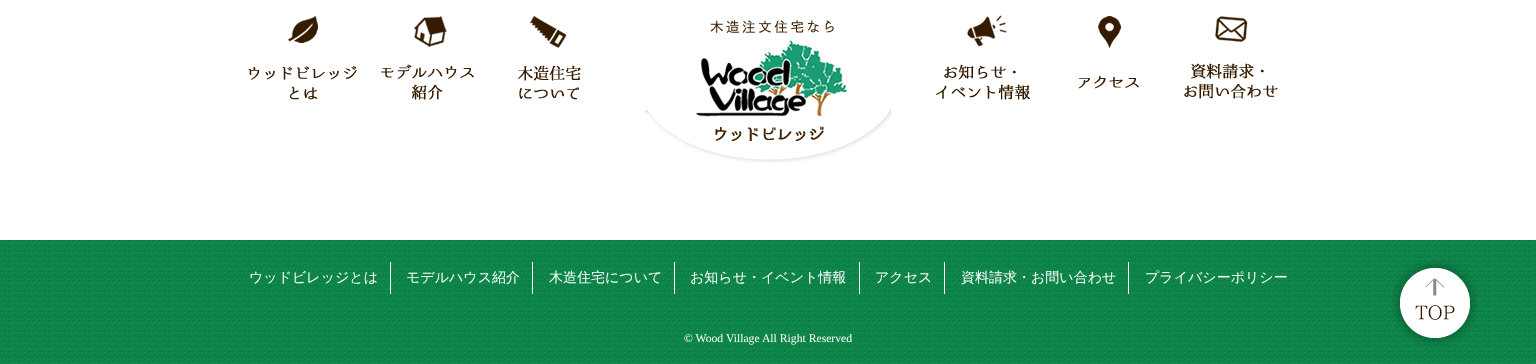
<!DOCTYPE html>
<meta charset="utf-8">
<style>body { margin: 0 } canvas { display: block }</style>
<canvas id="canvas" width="1536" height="364"></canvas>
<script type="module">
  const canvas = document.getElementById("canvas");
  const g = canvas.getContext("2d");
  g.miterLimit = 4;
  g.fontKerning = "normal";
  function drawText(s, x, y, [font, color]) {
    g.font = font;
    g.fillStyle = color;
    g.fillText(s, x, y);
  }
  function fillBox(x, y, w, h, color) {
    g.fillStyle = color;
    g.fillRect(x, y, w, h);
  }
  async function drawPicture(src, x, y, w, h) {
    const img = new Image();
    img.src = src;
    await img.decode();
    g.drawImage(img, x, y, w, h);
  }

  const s1 = ["500 14px WenQuanYi Zen Hei", "#FFFFFF"];
  const s2 = ["11.7px Liberation Serif", "#FFFFFF"];

  fillBox(0, 0, 1536, 364, "#FFFFFF");
  await drawPicture("pic1.png", 248, 16, 109, 84);
  await drawPicture("pic2.png", 381, 16, 93, 84);
  await drawPicture("pic3.png", 518, 15, 63, 85);
  await drawPicture("pic4.png", 936, 15, 94, 85);
  await drawPicture("pic5.png", 1078, 16, 61, 73);
  await drawPicture("pic6.png", 1184, 16, 94, 83);
  await drawPicture("pic7.png", 645, 20, 246, 143);
  await drawPicture("pic8.png", 0, 240, 1536, 124);
  fillBox(390, 262, 1, 32, "#FFFFFF");
  drawText("ウッドビレッジとは", 249, 282, s1);
  fillBox(532, 262, 1, 32, "#FFFFFF");
  drawText("モデルハウス紹介", 406, 282, s1);
  fillBox(674, 262, 1, 32, "#FFFFFF");
  drawText("木造住宅について", 549, 282, s1);
  fillBox(859, 262, 1, 32, "#FFFFFF");
  drawText("お知らせ・イベント情報", 690, 282, s1);
  fillBox(944, 262, 1, 32, "#FFFFFF");
  drawText("アクセス", 875, 282, s1);
  fillBox(1128, 262, 1, 32, "#FFFFFF");
  drawText("資料請求・お問い合わせ", 961, 282, s1);
  drawText("プライバシーポリシー", 1145, 282, s1);
  drawText("© Wood Village All Right Reserved", 684, 342, s2);
  await drawPicture("pic9.png", 1392, 260, 86, 86);
</script>
